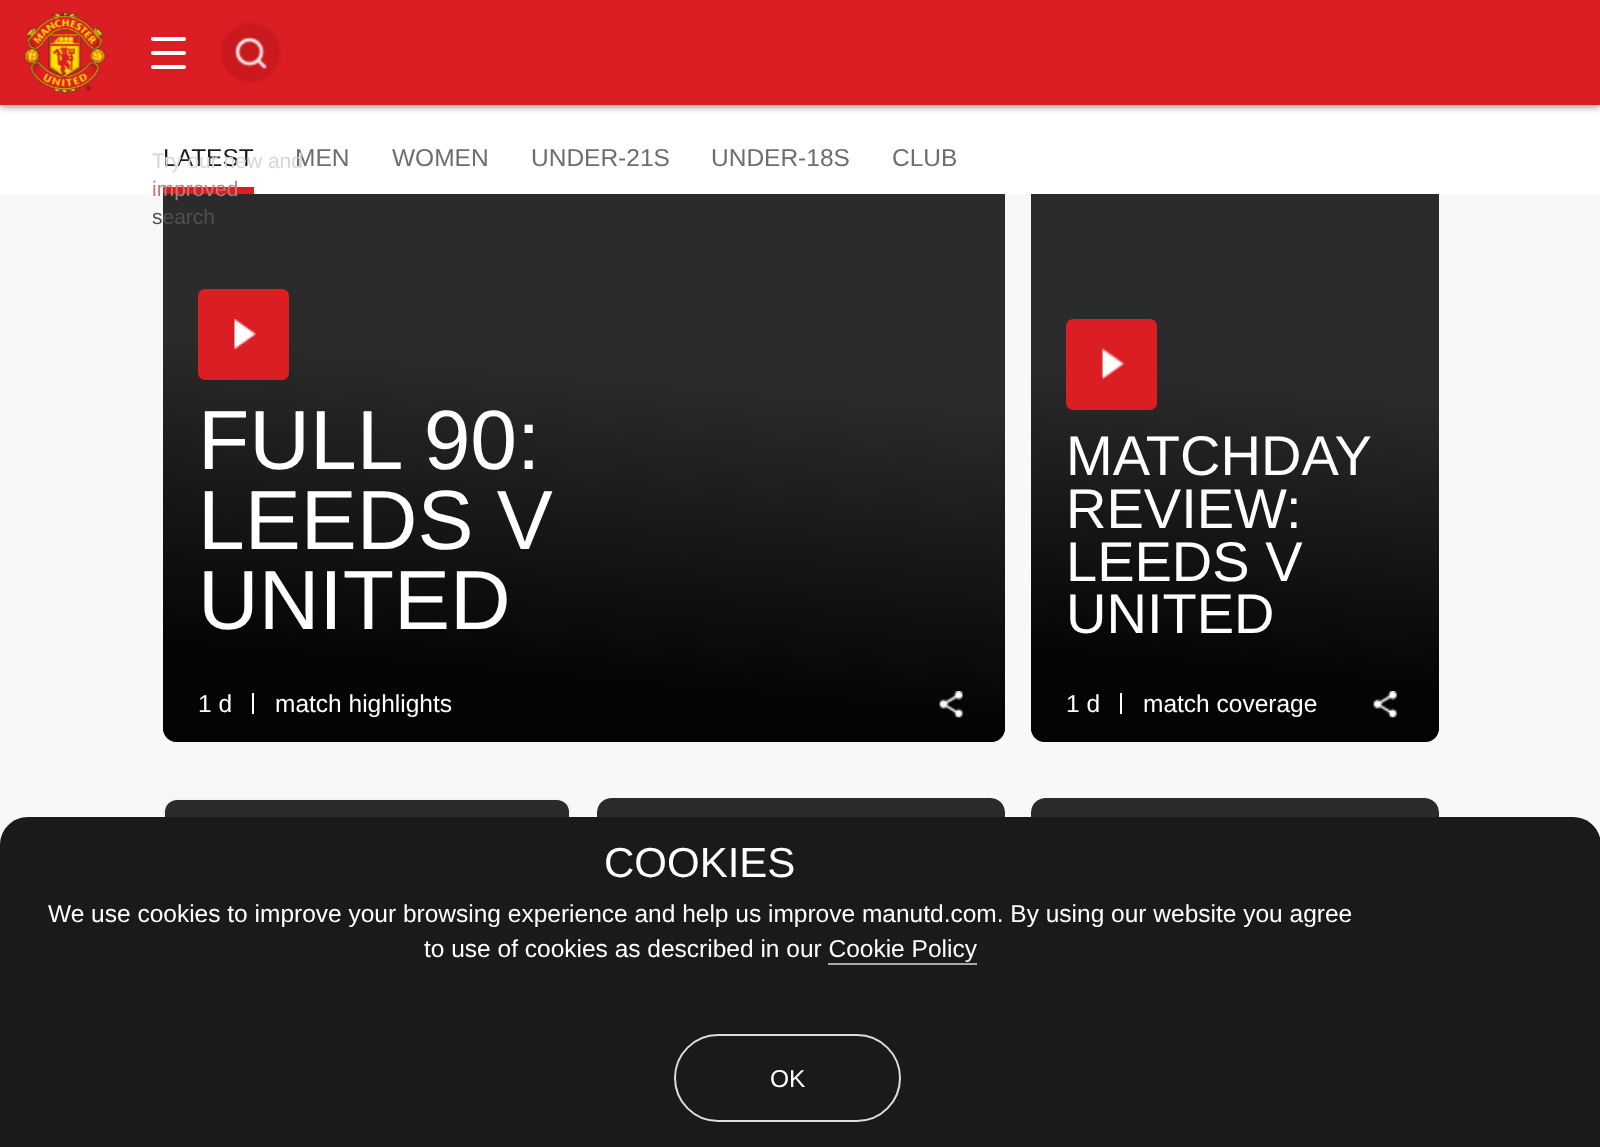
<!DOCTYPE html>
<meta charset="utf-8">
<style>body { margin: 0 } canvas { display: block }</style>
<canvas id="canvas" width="1600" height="1147"></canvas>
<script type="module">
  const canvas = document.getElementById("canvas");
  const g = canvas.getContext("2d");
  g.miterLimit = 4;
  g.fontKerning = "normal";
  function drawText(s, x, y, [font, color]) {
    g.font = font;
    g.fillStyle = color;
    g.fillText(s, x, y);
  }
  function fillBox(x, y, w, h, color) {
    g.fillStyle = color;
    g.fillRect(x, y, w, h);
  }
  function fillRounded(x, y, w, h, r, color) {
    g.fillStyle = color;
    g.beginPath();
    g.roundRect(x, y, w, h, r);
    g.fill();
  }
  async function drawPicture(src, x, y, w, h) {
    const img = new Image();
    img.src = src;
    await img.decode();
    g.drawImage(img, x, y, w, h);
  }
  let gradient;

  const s1 = ["24.5px Liberation Sans", "#1A1A1A"];
  const s2 = ["24.5px Liberation Sans", "#6E6E6E"];
  const s3 = ["84px Liberation Sans", "#FFFFFF"];
  const s4 = ["24.5px Liberation Sans", "#FFFFFF"];
  const s5 = ["56px Liberation Sans", "#FFFFFF"];
  const s6 = ["21px Liberation Sans", "#D7D7D7"];
  const s7 = ["21px Liberation Sans", "#C77779"];
  const s8 = ["21px Liberation Sans", "#505050"];
  const s9 = ["42px Liberation Sans", "#FFFFFF"];

  fillBox(0, 0, 1600, 1147, "#F8F8F8");
  g.save();
  g.beginPath();
  g.roundRect(163, 112, 842, 630, [14, 14, 12, 12]);
  g.clip();
  fillRounded(163, 112, 842, 630, 14, "#2B2B2B");
  g.restore();
  g.save();
  g.beginPath();
  g.roundRect(1031, 112, 408, 630, [14, 14, 12, 12]);
  g.clip();
  fillRounded(1031, 112, 408, 630, 14, "#2B2B2B");
  g.restore();
  fillBox(0, 105, 1600, 89, "#FFFFFF");
  fillBox(163, 187, 91, 7, "#DB1D24");
  drawText("LATEST", 163, 166, s1);
  drawText("MEN", 295, 166, s2);
  drawText("WOMEN", 392, 166, s2);
  drawText("UNDER-21S", 531, 166, s2);
  drawText("UNDER-18S", 711, 166, s2);
  drawText("CLUB", 892, 166, s2);
  gradient = g.createLinearGradient(607, 262, 561, 786);
  gradient.addColorStop(0.2, "rgba(0, 0, 0, 0)");
  gradient.addColorStop(0.8, "rgba(0, 0, 0, 0.9)");
  g.fillStyle = gradient;
  g.beginPath();
  g.moveTo(1005, 298);
  g.lineTo(1005, 728);
  g.bezierCurveTo(1005, 736, 999, 742, 991, 742);
  g.lineTo(177, 742);
  g.bezierCurveTo(169, 742, 163, 736, 163, 728);
  g.lineTo(163, 298);
  g.closePath();
  g.fill();
  fillRounded(198, 289, 91, 91, 7, "#DB1D24");
  await drawPicture("pic1.png", 234, 319, 22, 30);
  drawText("FULL 90:", 198, 469, s3);
  drawText("LEEDS V", 198, 549, s3);
  drawText("UNITED", 198, 629, s3);
  drawText("1 d", 198, 712, s4);
  fillBox(252, 693, 2, 21, "#FFFFFF");
  drawText("match highlights", 275, 712, s4);
  await drawPicture("pic2.png", 939, 691, 24, 27);
  gradient = g.createLinearGradient(1256, 281, 1213, 766);
  gradient.addColorStop(0.2, "rgba(0, 0, 0, 0)");
  gradient.addColorStop(0.8, "rgba(0, 0, 0, 0.9)");
  g.fillStyle = gradient;
  g.beginPath();
  g.moveTo(1439, 298);
  g.lineTo(1439, 728);
  g.bezierCurveTo(1439, 736, 1433, 742, 1425, 742);
  g.lineTo(1045, 742);
  g.bezierCurveTo(1037, 742, 1031, 736, 1031, 728);
  g.lineTo(1031, 298);
  g.closePath();
  g.fill();
  fillRounded(1066, 319, 91, 91, 7, "#DB1D24");
  await drawPicture("pic3.png", 1101, 348, 23, 32);
  drawText("MATCHDAY", 1066, 475, s5);
  drawText("REVIEW:", 1066, 528, s5);
  drawText("LEEDS V", 1066, 581, s5);
  drawText("UNITED", 1066, 633, s5);
  drawText("1 d", 1066, 712, s4);
  fillBox(1120, 693, 2, 21, "#FFFFFF");
  drawText("match coverage", 1143, 712, s4);
  await drawPicture("pic4.png", 1373, 691, 24, 27);
  g.beginPath();
  g.roundRect(164, 799, 406, 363, 13);
  g.strokeStyle = "#F2F2F2";
  g.lineWidth = 2;
  g.stroke();
  g.fillStyle = "#2B2B2B";
  g.beginPath();
  g.roundRect(165, 800, 404, 171, [12, 12, 0, 0]);
  g.fill();
  g.save();
  g.beginPath();
  g.moveTo(611, 798);
  g.lineTo(991, 798);
  g.bezierCurveTo(998.5, 798, 1005, 804.5, 1005, 812);
  g.lineTo(1005, 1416);
  g.bezierCurveTo(1005, 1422.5, 999.5, 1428, 993, 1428);
  g.lineTo(609, 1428);
  g.bezierCurveTo(602.5, 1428, 597, 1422.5, 597, 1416);
  g.lineTo(597, 812);
  g.bezierCurveTo(597, 804.5, 603.5, 798, 611, 798);
  g.closePath();
  g.clip();
  fillRounded(597, 798, 408, 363, 14, "#2B2B2B");
  g.restore();
  g.save();
  g.beginPath();
  g.moveTo(1045, 798);
  g.lineTo(1425, 798);
  g.bezierCurveTo(1432.5, 798, 1439, 804.5, 1439, 812);
  g.lineTo(1439, 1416);
  g.bezierCurveTo(1439, 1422.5, 1433.5, 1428, 1427, 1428);
  g.lineTo(1043, 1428);
  g.bezierCurveTo(1036.5, 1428, 1031, 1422.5, 1031, 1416);
  g.lineTo(1031, 812);
  g.bezierCurveTo(1031, 804.5, 1037.5, 798, 1045, 798);
  g.closePath();
  g.clip();
  fillRounded(1031, 798, 408, 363, 14, "#2B2B2B");
  g.restore();
  g.fillStyle = "rgba(0, 0, 0, 0.4)";
  g.filter = "blur(3.5px)";
  g.beginPath();
  g.rect(0, 2, 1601, 105);
  g.fill();
  g.filter = "none";
  fillBox(0, 0, 1600, 105, "#DB1D24");
  await drawPicture("pic5.png", 24, 12, 82, 82);
  fillRounded(151, 37, 35, 4, 2, "#FFFFFF");
  fillRounded(151, 51, 35, 4, 2, "#FFFFFF");
  fillRounded(151, 65, 35, 4, 2, "#FFFFFF");
  g.save();
  g.beginPath();
  g.moveTo(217, 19);
  g.lineTo(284, 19);
  g.lineTo(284, 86);
  g.lineTo(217, 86);
  g.closePath();
  g.moveTo(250, 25);
  g.bezierCurveTo(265.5, 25, 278, 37.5, 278, 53);
  g.bezierCurveTo(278, 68.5, 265.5, 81, 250, 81);
  g.bezierCurveTo(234.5, 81, 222, 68.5, 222, 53);
  g.bezierCurveTo(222, 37.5, 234.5, 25, 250, 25);
  g.closePath();
  g.clip("evenodd");
  g.fillStyle = "rgba(78, 3, 3, 0.12)";
  g.filter = "blur(1px)";
  g.beginPath();
  g.roundRect(221, 23, 59, 59, 29.5);
  g.fill();
  g.filter = "none";
  g.restore();
  g.fillStyle = "rgba(78, 3, 3, 0.12)";
  g.beginPath();
  g.arc(250, 53, 28, 0, Math.PI * 2);
  g.fill();
  await drawPicture("pic6.png", 234, 36, 33, 33);
  drawText("Try our new and", 152, 168, s6);
  drawText("improved", 152, 196, s7);
  drawText("search", 152, 224, s8);
  g.fillStyle = "#1A1A1A";
  g.beginPath();
  g.moveTo(28, 817);
  g.lineTo(1573, 817);
  g.bezierCurveTo(1588.5, 817, 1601, 829.5, 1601, 845);
  g.lineTo(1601, 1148);
  g.lineTo(0, 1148);
  g.lineTo(0, 845);
  g.bezierCurveTo(0, 829.5, 12.5, 817, 28, 817);
  g.closePath();
  g.fill();
  drawText("COOKIES", 604, 877, s9);
  drawText("We use cookies to improve your browsing experience and help us improve manutd.com. By using our website you agree", 48, 922, s4);
  drawText("to use of cookies as described in our Cookie Policy", 424, 957, s4);
  fillBox(828, 963, 149, 2, "#A8A8A8");
  g.beginPath();
  g.roundRect(675, 1035, 225, 86, 43);
  g.strokeStyle = "#DDDDDD";
  g.stroke();
  drawText("OK", 770, 1087, s4);
</script>
